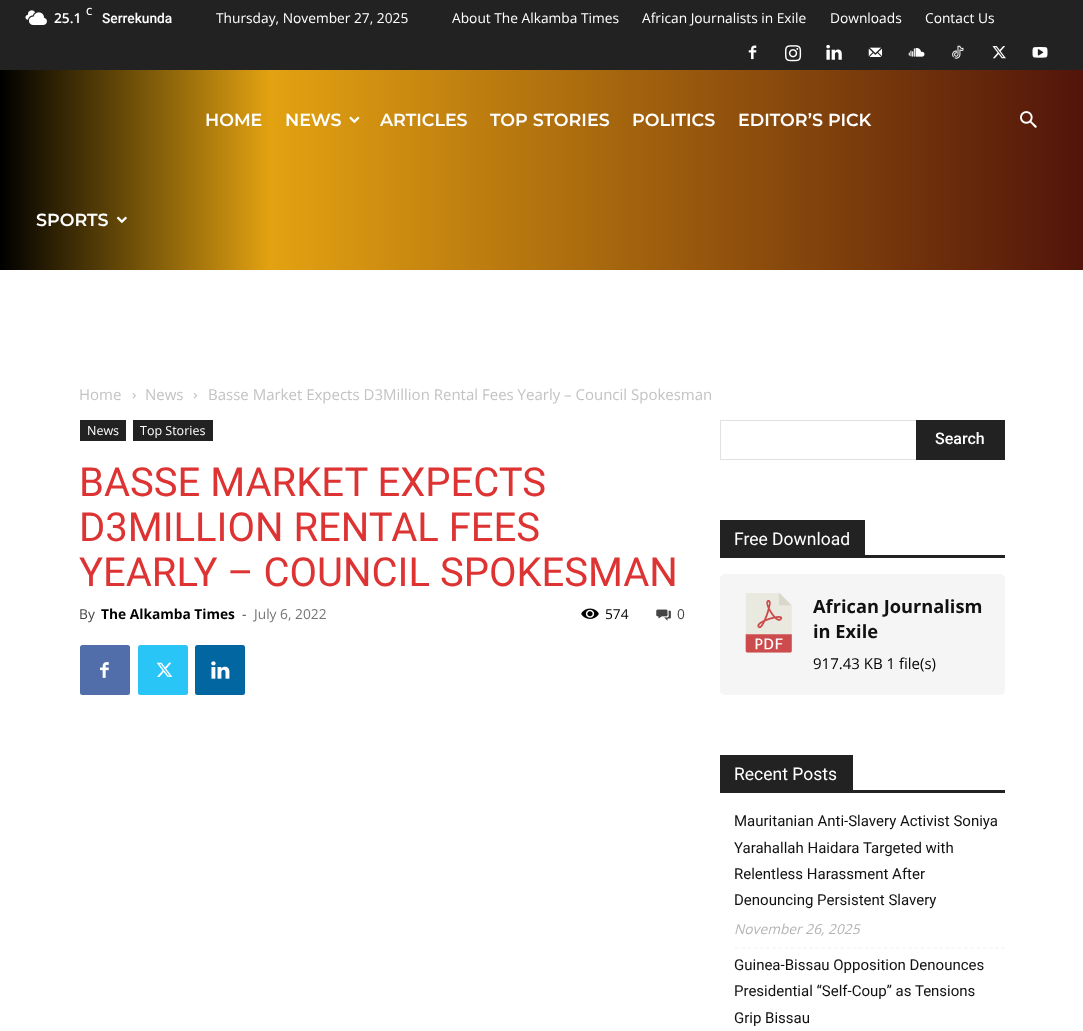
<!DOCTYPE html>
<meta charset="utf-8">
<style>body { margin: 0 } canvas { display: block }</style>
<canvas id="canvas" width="1083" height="1031"></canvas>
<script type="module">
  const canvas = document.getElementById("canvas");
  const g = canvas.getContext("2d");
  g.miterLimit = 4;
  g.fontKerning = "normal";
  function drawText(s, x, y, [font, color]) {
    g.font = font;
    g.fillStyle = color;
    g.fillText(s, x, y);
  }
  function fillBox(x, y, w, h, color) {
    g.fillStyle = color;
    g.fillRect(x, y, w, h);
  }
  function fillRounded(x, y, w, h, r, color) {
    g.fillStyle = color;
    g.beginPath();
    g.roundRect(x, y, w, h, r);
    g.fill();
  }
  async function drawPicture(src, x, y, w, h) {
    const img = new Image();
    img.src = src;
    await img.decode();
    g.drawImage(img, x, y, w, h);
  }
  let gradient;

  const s1 = ["600 10px Open Sans", "#FFFFFF"];
  const s2 = ["600 13.75px Open Sans", "#FFFFFF"];
  const s3 = ["500 13.75px Roboto", "#FFFFFF"];
  const s4 = ["13.75px Open Sans", "#FFFFFF"];
  const s5 = ["600 17.5px Montserrat", "#FFFFFF"];
  const s6 = ["15px Open Sans", "#C3C3C3"];
  const s7 = ["12.5px Open Sans", "#FFFFFF"];
  const s8 = ["40px Roboto", "#DD3333"];
  const s9 = ["13.75px Open Sans", "#444444"];
  const s10 = ["bold 13.75px Open Sans", "#000000"];
  const s11 = ["13.75px Open Sans", "#767676"];
  const s12 = ["13.75px Open Sans", "#000000"];
  const s13 = ["500 16px Roboto", "#FFFFFF"];
  const s14 = ["17.5px Roboto", "#FFFFFF"];
  const s15 = ["bold 18.25px Open Sans", "#111111"];
  const s16 = ["15px Open Sans", "#000000"];
  const s17 = ["15px Roboto", "#111111"];
  const s18 = ["italic 13.75px Open Sans", "#B5B5B5"];

  fillBox(0, 0, 1083, 1031, "#FFFFFF");
  fillBox(0, 0, 1083, 70, "#222222");
  await drawPicture("pic1.png", 25, 10, 22, 15);
  drawText("C", 86, 15, s1);
  drawText("25.1", 54, 23, s2);
  drawText("Serrekunda", 102, 23, s3);
  drawText("Thursday, November 27, 2025", 216, 23, s4);
  drawText("About The Alkamba Times", 452, 23, s4);
  drawText("African Journalists in Exile", 642, 23, s4);
  drawText("Downloads", 830, 23, s4);
  drawText("Contact Us", 925, 23, s4);
  await drawPicture("pic2.png", 748, 45, 9, 15);
  await drawPicture("pic3.png", 785, 45, 17, 17);
  await drawPicture("pic4.png", 826, 44, 16, 16);
  await drawPicture("pic5.png", 868, 47, 15, 10);
  await drawPicture("pic6.png", 908, 48, 17, 9);
  await drawPicture("pic7.png", 952, 45, 12, 14);
  await drawPicture("pic8.png", 992, 46, 14, 13);
  await drawPicture("pic9.png", 1032, 47, 16, 11);
  gradient = g.createLinearGradient(0, 170, 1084, 170);
  gradient.addColorStop(0, "#000000");
  gradient.addColorStop(0.25, "#E3A211");
  gradient.addColorStop(1, "#52140A");
  g.fillStyle = gradient;
  g.fillRect(0, 70, 1083, 200);
  drawText("HOME", 205, 126, s5);
  drawText("NEWS", 285, 126, s5);
  await drawPicture("pic10.png", 349, 116, 11, 8);
  drawText("ARTICLES", 380, 126, s5);
  drawText("TOP STORIES", 490, 126, s5);
  drawText("POLITICS", 632, 126, s5);
  drawText("EDITOR’S PICK", 738, 126, s5);
  drawText("SPORTS", 36, 226, s5);
  await drawPicture("pic11.png", 116, 216, 11, 8);
  await drawPicture("pic12.png", 1020, 111, 17, 17);
  drawText("Home", 79, 400, s6);
  await drawPicture("pic13.png", 132, 393, 4, 6);
  drawText("News", 145, 400, s6);
  await drawPicture("pic14.png", 193, 392, 4, 7);
  drawText("Basse Market Expects D3Million Rental Fees Yearly – Council Spokesman", 208, 400, s6);
  fillBox(80, 420, 46, 21, "#222222");
  drawText("News", 87, 435, s7);
  fillBox(133, 420, 80, 21, "#222222");
  drawText("Top Stories", 140, 435, s7);
  drawText("BASSE MARKET EXPECTS", 79, 496, s8);
  drawText("D3MILLION RENTAL FEES", 79, 541, s8);
  drawText("YEARLY – COUNCIL SPOKESMAN", 79, 586, s8);
  drawText("By", 79, 619, s9);
  drawText("The Alkamba Times", 101, 619, s10);
  drawText("-", 242, 619, s9);
  drawText("July 6, 2022", 254, 619, s11);
  await drawPicture("pic15.png", 581, 608, 18, 11);
  drawText("574", 605, 619, s12);
  await drawPicture("pic16.png", 656, 609, 15, 12);
  drawText("0", 677, 619, s9);
  fillRounded(80, 645, 50, 50, 2.5, "#516EAB");
  await drawPicture("pic17.png", 100, 662, 9, 16);
  fillRounded(138, 645, 50, 50, 2.5, "#29C5F6");
  await drawPicture("pic18.png", 156, 662, 17, 15);
  fillRounded(195, 645, 50, 50, 2.5, "#0266A0");
  await drawPicture("pic19.png", 211, 661, 19, 18);
  fillBox(720, 420, 196, 1, "#E1E1E1");
  fillBox(720, 459, 196, 1, "#E1E1E1");
  fillBox(720, 420, 1, 40, "#E1E1E1");
  fillBox(916, 420, 89, 40, "#222222");
  drawText("Search", 935, 444, s13);
  fillBox(720, 555, 285, 3, "#222222");
  fillBox(720, 520, 145, 35, "#222222");
  drawText("Free Download", 734, 545, s14);
  fillRounded(720, 574, 285, 121, 5, "#F5F5F5");
  await drawPicture("pic20.png", 745, 593, 47, 60);
  drawText("African Journalism", 813, 613, s15);
  drawText("in Exile", 813, 638, s15);
  drawText("917.43 KB 1 file(s)", 813, 669, s16);
  fillBox(720, 790, 285, 3, "#222222");
  fillBox(720, 755, 133, 35, "#222222");
  drawText("Recent Posts", 734, 780, s14);
  g.beginPath();
  g.moveTo(735, 948);
  g.lineTo(1005, 948);
  g.strokeStyle = "#F1F1F1";
  g.lineWidth = 1.2;
  g.setLineDash([3.75, 2.44]);
  g.stroke();
  drawText("Mauritanian Anti-Slavery Activist Soniya", 734, 826, s17);
  drawText("Yarahallah Haidara Targeted with", 734, 853, s17);
  drawText("Relentless Harassment After", 734, 879, s17);
  drawText("Denouncing Persistent Slavery", 734, 905, s17);
  drawText("November 26, 2025", 734, 934, s18);
  drawText("Guinea-Bissau Opposition Denounces", 734, 970, s17);
  drawText("Presidential “Self-Coup” as Tensions", 734, 996, s17);
  drawText("Grip Bissau", 734, 1023, s17);
</script>
